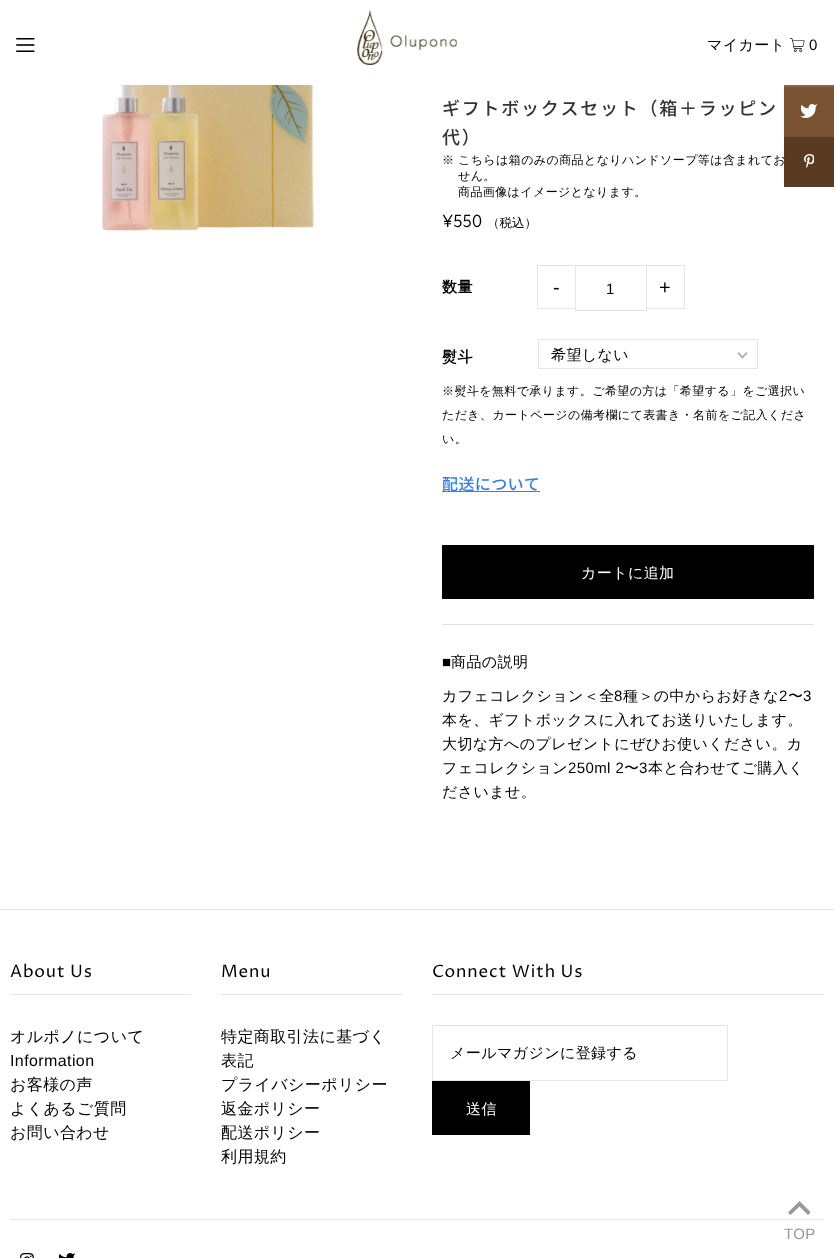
<!DOCTYPE html>
<meta charset="utf-8">
<style>body { margin: 0 } canvas { display: block }</style>
<canvas id="canvas" width="834" height="1258"></canvas>
<script type="module">
  const canvas = document.getElementById("canvas");
  const g = canvas.getContext("2d");
  g.miterLimit = 4;
  g.fontKerning = "normal";
  function drawText(s, x, y, [font, color]) {
    g.font = font;
    g.fillStyle = color;
    g.fillText(s, x, y);
  }
  function fillBox(x, y, w, h, color) {
    g.fillStyle = color;
    g.fillRect(x, y, w, h);
  }
  async function drawPicture(src, x, y, w, h) {
    const img = new Image();
    img.src = src;
    await img.decode();
    g.drawImage(img, x, y, w, h);
  }

  const s1 = ["500 15px WenQuanYi Zen Hei", "#000000"];
  const s2 = ["15px Liberation Sans", "#000000"];
  const s3 = ["500 18px Noto Sans JP", "#333333"];
  const s4 = ["500 12px WenQuanYi Zen Hei", "#000000"];
  const s5 = ["18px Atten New", "#000000"];
  const s6 = ["500 12.5px WenQuanYi Zen Hei", "#000000"];
  const s7 = ["bold 15px WenQuanYi Zen Hei", "#000000"];
  const s8 = ["20px Liberation Sans", "#000000"];
  const s9 = ["500 16px Noto Sans JP", "#2F80ED"];
  const s10 = ["500 15px WenQuanYi Zen Hei", "#FFFFFF"];
  const s11 = ["17px Proza Libre", "#000000"];
  const s12 = ["500 16px WenQuanYi Zen Hei", "#000000"];
  const s13 = ["16px Liberation Sans", "#000000"];
  const s14 = ["15px Liberation Sans", "#999999"];

  fillBox(0, 0, 834, 1258, "#FFFFFF");
  await drawPicture("pic1.png", 16, 38, 19, 14);
  await drawPicture("pic2.png", 357, 10, 100, 55);
  g.letterSpacing = "0.4px";
  drawText("マイカート", 707, 50, s1);
  await drawPicture("pic3.png", 790, 38, 15, 14);
  drawText("0", 809, 50, s2);
  fillBox(784, 85, 50, 2, "#8D6544");
  fillBox(784, 87, 50, 50, "#795232");
  await drawPicture("pic4.png", 800, 104, 17, 14);
  fillBox(784, 137, 50, 50, "#5A3B21");
  await drawPicture("pic5.png", 804, 154, 10, 14);
  await drawPicture("pic6.png", 102, 85, 212, 146);
  g.letterSpacing = "1.75px";
  drawText("ギフトボックスセット（箱＋ラッピン", 442, 115, s3);
  drawText("代）", 442, 144, s3);
  g.letterSpacing = "0.4px";
  drawText("※", 442, 164, s4);
  drawText("こちらは箱のみの商品となりハンドソープ等は含まれてお", 458, 164, s4);
  drawText("せん。", 458, 180, s4);
  drawText("商品画像はイメージとなります。", 458, 196, s4);
  g.letterSpacing = "0px";
  drawText("¥550", 442, 227, s5);
  drawText("（税込）", 487, 227, s6);
  g.letterSpacing = "0.4px";
  drawText("数量", 442, 292, s7);
  fillBox(537, 265, 38, 1, "#E5E5E5");
  fillBox(537, 308, 38, 1, "#E5E5E5");
  fillBox(537, 265, 1, 44, "#E5E5E5");
  g.letterSpacing = "0px";
  drawText("-", 553, 294, s8);
  g.strokeStyle = "#E5E5E5";
  g.strokeRect(575.5, 265.5, 71, 45);
  g.letterSpacing = "0.4px";
  drawText("1", 606, 294, s2);
  fillBox(647, 265, 38, 1, "#E5E5E5");
  fillBox(684, 265, 1, 44, "#E5E5E5");
  fillBox(647, 308, 38, 1, "#E5E5E5");
  g.letterSpacing = "0px";
  drawText("+", 659, 294, s8);
  g.letterSpacing = "0.4px";
  drawText("熨斗", 442, 362, s7);
  g.strokeRect(538.5, 339.5, 219, 29);
  drawText("希望しない", 551, 360, s1);
  g.fillStyle = "#ACACAC";
  g.beginPath();
  g.moveTo(741.5, 357);
  g.lineTo(746.5, 352);
  g.lineTo(747.5, 353.5);
  g.lineTo(742.5, 358.5);
  g.closePath();
  g.fill();
  g.beginPath();
  g.moveTo(738.5, 352);
  g.lineTo(743.5, 357);
  g.lineTo(742.5, 358.5);
  g.lineTo(737.5, 353.5);
  g.closePath();
  g.fill();
  drawText("※熨斗を無料で承ります。ご希望の方は「希望する」をご選択い", 442, 395, s4);
  drawText("ただき、カートページの備考欄にて表書き・名前をご記入くださ", 442, 419, s4);
  drawText("い。", 442, 443, s4);
  fillBox(442, 491, 98, 1, "#2F80ED");
  drawText("配送について", 442, 490, s9);
  fillBox(442, 545, 372, 54, "#000000");
  drawText("カートに追加", 581, 578, s10);
  fillBox(442, 624, 372, 1, "#E0E0E0");
  drawText("■", 442, 667, s2);
  drawText("商品の説明", 451, 667, s1);
  drawText("カフェコレクション＜全", 442, 701, s1);
  drawText("8", 614, 701, s2);
  drawText("種＞の中からお好きな", 623, 701, s1);
  drawText("2", 779, 701, s2);
  drawText("〜", 788, 701, s1);
  drawText("3", 803, 701, s2);
  drawText("本を、ギフトボックスに入れてお送りいたします。", 442, 725, s1);
  drawText("大切な方へのプレゼントにぜひお使いください。カ", 442, 749, s1);
  drawText("フェコレクション", 442, 773, s1);
  drawText("250ml 2", 568, 773, s2);
  drawText("〜", 624, 773, s1);
  drawText("3", 639, 773, s2);
  drawText("本と合わせてご購入く", 648, 773, s1);
  drawText("ださいませ。", 442, 797, s1);
  fillBox(0, 909, 834, 1, "#E5E5E5");
  fillBox(10, 994, 181, 1, "#E5E5E5");
  g.letterSpacing = "0.8px";
  drawText("About Us", 10, 977, s11);
  g.letterSpacing = "0.4px";
  drawText("オルポノについて", 10, 1042, s12);
  drawText("Information", 10, 1066, s13);
  drawText("お客様の声", 10, 1090, s12);
  drawText("よくあるご質問", 10, 1114, s12);
  drawText("お問い合わせ", 10, 1138, s12);
  fillBox(221, 994, 181, 1, "#E5E5E5");
  g.letterSpacing = "0.8px";
  drawText("Menu", 221, 977, s11);
  g.letterSpacing = "0.4px";
  drawText("特定商取引法に基づく", 221, 1042, s12);
  drawText("表記", 221, 1066, s12);
  drawText("プライバシーポリシー", 221, 1090, s12);
  drawText("返金ポリシー", 221, 1114, s12);
  drawText("配送ポリシー", 221, 1138, s12);
  drawText("利用規約", 221, 1162, s12);
  fillBox(432, 994, 392, 1, "#E5E5E5");
  g.letterSpacing = "0.8px";
  drawText("Connect With Us", 432, 977, s11);
  g.strokeRect(432.5, 1025.5, 295, 55);
  g.letterSpacing = "0.4px";
  drawText("メールマガジンに登録する", 450, 1058, s1);
  fillBox(432, 1081, 98, 54, "#000000");
  drawText("送信", 466, 1114, s10);
  fillBox(10, 1219, 814, 1, "#E5E5E5");
  await drawPicture("pic7.png", 20, 1253, 14, 5);
  await drawPicture("pic8.png", 58, 1253, 17, 5);
  g.save();
  g.beginPath();
  g.rect(788, 1201, 22, 14);
  g.clip();
  g.fillStyle = "#999999";
  g.beginPath();
  g.moveTo(799.5, 1201);
  g.lineTo(788, 1212.5);
  g.lineTo(790.5, 1215);
  g.lineTo(799.5, 1206.5);
  g.lineTo(808, 1215);
  g.lineTo(811, 1212.5);
  g.closePath();
  g.fill();
  g.restore();
  drawText("TOP", 784, 1239, s14);
</script>
